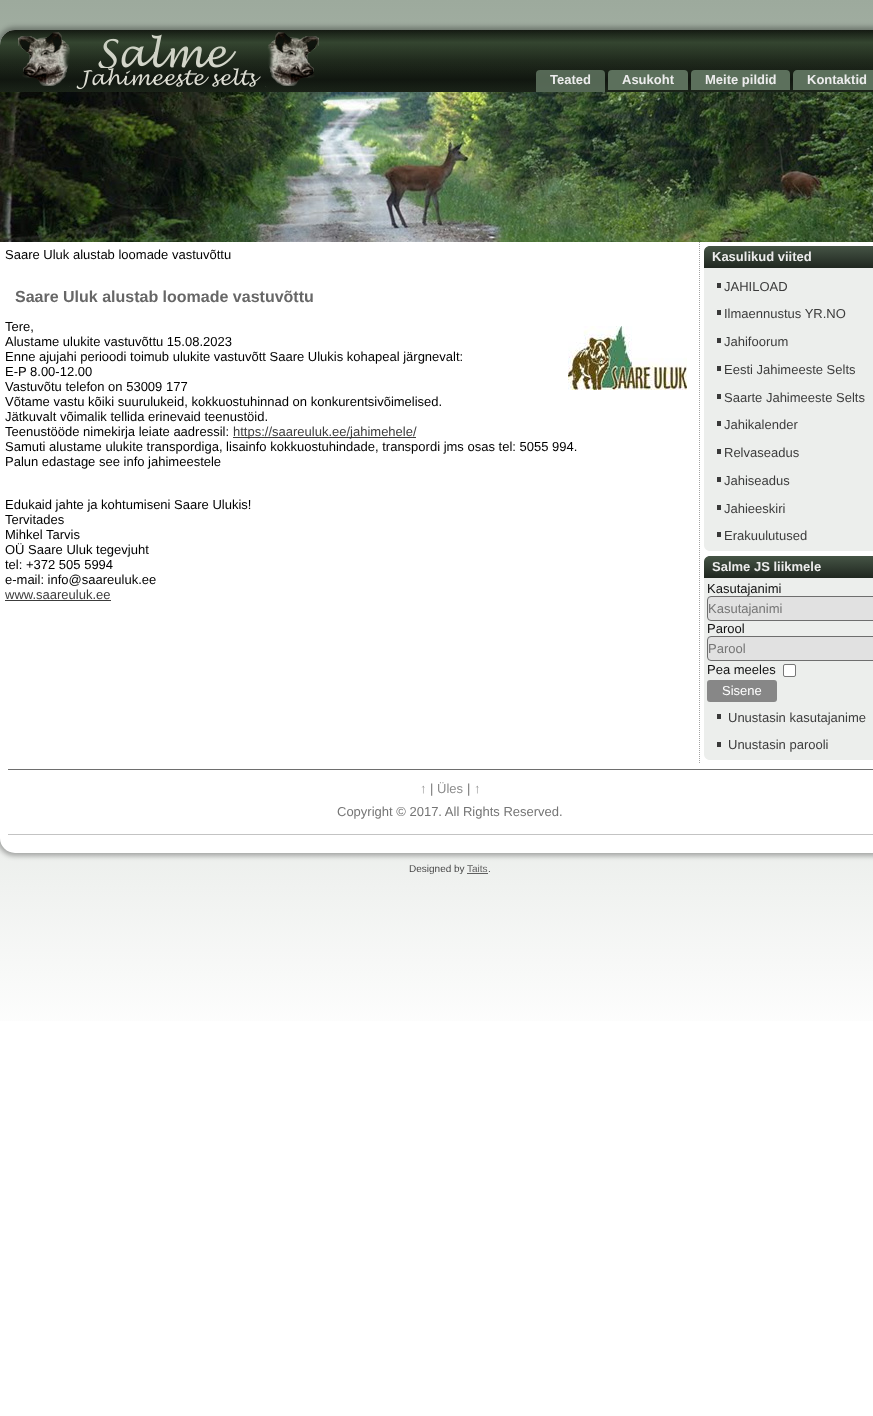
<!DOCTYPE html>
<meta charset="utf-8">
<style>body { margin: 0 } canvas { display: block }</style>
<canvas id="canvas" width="873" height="1416"></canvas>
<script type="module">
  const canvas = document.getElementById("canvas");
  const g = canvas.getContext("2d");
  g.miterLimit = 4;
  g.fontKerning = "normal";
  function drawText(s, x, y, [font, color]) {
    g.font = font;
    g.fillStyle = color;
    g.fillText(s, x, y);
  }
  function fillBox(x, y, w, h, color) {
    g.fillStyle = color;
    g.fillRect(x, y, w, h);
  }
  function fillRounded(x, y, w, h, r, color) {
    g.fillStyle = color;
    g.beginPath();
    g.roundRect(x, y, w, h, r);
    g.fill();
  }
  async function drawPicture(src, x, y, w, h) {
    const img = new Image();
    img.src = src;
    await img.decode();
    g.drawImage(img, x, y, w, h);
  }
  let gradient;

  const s1 = ["bold 13px Liberation Sans", "#ECECEC"];
  const s2 = ["13px Liberation Sans", "#000000"];
  const s3 = ["bold 16px Liberation Sans", "#676767"];
  const s4 = ["13px Liberation Sans", "#3C3C3C"];
  const s5 = ["13px Liberation Sans", "#101010"];
  const s6 = ["13px Liberation Sans", "#757575"];
  const s7 = ["13px Liberation Sans", "#FFFFFF"];
  const s8 = ["13px Liberation Sans", "#8C8C8C"];
  const s9 = ["10px Liberation Sans", "#494949"];
  const s10 = ["10px Liberation Sans", "#606060"];

  fillBox(0, 0, 873, 1416, "#FFFFFF");
  gradient = g.createLinearGradient(436, 0, 437, 1416);
  gradient.addColorStop(0, "#9DAA9D");
  gradient.addColorStop(0.74, "#FFFFFF");
  g.fillStyle = gradient;
  g.fillRect(0, 0, 873, 1021);
  g.fillStyle = "rgba(0, 0, 0, 0.3)";
  g.filter = "blur(2.5px)";
  g.beginPath();
  g.roundRect(-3, 27, 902, 829, 18);
  g.fill();
  g.filter = "none";
  fillRounded(0, 30, 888, 823, 15, "#FFFFFF");
  await drawPicture("pic1.png", 0, 30, 873, 62);
  g.fillStyle = "rgba(92, 112, 92, 0.9)";
  g.beginPath();
  g.roundRect(536, 70, 69, 22, [4, 4, 0, 0]);
  g.fill();
  drawText("Teated", 550, 84, s1);
  g.fillStyle = "#5C705C";
  g.beginPath();
  g.roundRect(608, 70, 80, 20, [4, 4, 0, 0]);
  g.fill();
  drawText("Asukoht", 622, 84, s1);
  g.fillStyle = "#5C705C";
  g.beginPath();
  g.roundRect(691, 70, 99, 20, [4, 4, 0, 0]);
  g.fill();
  drawText("Meite pildid", 705, 84, s1);
  g.fillStyle = "#5C705C";
  g.beginPath();
  g.moveTo(797, 70);
  g.lineTo(873, 70);
  g.bezierCurveTo(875, 70, 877, 72, 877, 74);
  g.lineTo(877, 90);
  g.lineTo(793, 90);
  g.lineTo(793, 74);
  g.bezierCurveTo(793, 72, 795, 70, 797, 70);
  g.closePath();
  g.fill();
  drawText("Kontaktid", 807, 84, s1);
  await drawPicture("pic2.png", 0, 92, 873, 150);
  drawText("Saare Uluk alustab loomade vastuvõttu", 5, 259, s2);
  drawText("Saare Uluk alustab loomade vastuvõttu", 15, 302, s3);
  drawText("Tere,", 5, 331, s2);
  await drawPicture("pic3.png", 568, 326, 119, 64);
  drawText("Alustame ulukite vastuvõttu 15.08.2023", 5, 346, s2);
  drawText("Enne ajujahi perioodi toimub ulukite vastuvõtt Saare Ulukis kohapeal järgnevalt:", 5, 361, s2);
  drawText("E-P 8.00-12.00", 5, 376, s2);
  drawText("Vastuvõtu telefon on 53009 177", 5, 391, s2);
  drawText("Võtame vastu kõiki suurulukeid, kokkuostuhinnad on konkurentsivõimelised.", 5, 406, s2);
  drawText("Jätkuvalt võimalik tellida erinevaid teenustöid.", 5, 421, s2);
  drawText("Teenustööde nimekirja leiate aadressil:", 5, 436, s2);
  fillBox(233, 437, 183, 1, "#3C3C3C");
  drawText("https://saareuluk.ee/jahimehele/", 233, 436, s4);
  drawText("Samuti alustame ulukite transpordiga, lisainfo kokkuostuhindade, transpordi jms osas tel: 5055 994.", 5, 451, s2);
  drawText("Palun edastage see info jahimeestele", 5, 466, s2);
  drawText("Edukaid jahte ja kohtumiseni Saare Ulukis!", 5, 509, s2);
  drawText("Tervitades", 5, 524, s2);
  drawText("Mihkel Tarvis", 5, 539, s2);
  drawText("OÜ Saare Uluk tegevjuht", 5, 554, s2);
  drawText("tel: +372 505 5994", 5, 569, s2);
  drawText("e-mail: info@saareuluk.ee", 5, 584, s2);
  drawText("www.saareuluk.ee", 5, 599, s4);
  fillBox(5, 600, 106, 1, "#3C3C3C");
  g.beginPath();
  g.moveTo(699.5, 242);
  g.lineTo(699.5, 764);
  g.strokeStyle = "#A3A3A3";
  g.setLineDash([1, 1]);
  g.stroke();
  gradient = g.createLinearGradient(800, 246, 800, 268);
  gradient.addColorStop(0, "#455445");
  gradient.addColorStop(1, "#202720");
  g.fillStyle = gradient;
  g.beginPath();
  g.moveTo(710, 246);
  g.lineTo(873, 246);
  g.bezierCurveTo(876.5, 246, 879, 248.5, 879, 252);
  g.lineTo(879, 268);
  g.lineTo(704, 268);
  g.lineTo(704, 252);
  g.bezierCurveTo(704, 248.5, 706.5, 246, 710, 246);
  g.closePath();
  g.fill();
  drawText("Kasulikud viited", 712, 261, s1);
  g.fillStyle = "#ECEEEC";
  g.beginPath();
  g.moveTo(704, 268);
  g.lineTo(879, 268);
  g.lineTo(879, 545);
  g.bezierCurveTo(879, 548.5, 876.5, 551, 873, 551);
  g.lineTo(710, 551);
  g.bezierCurveTo(706.5, 551, 704, 548.5, 704, 545);
  g.closePath();
  g.fill();
  fillBox(717, 283, 4, 5, "#393939");
  drawText("JAHILOAD", 724, 291, s4);
  fillBox(717, 310, 4, 5, "#393939");
  drawText("Ilmaennustus YR.NO", 724, 318, s4);
  fillBox(717, 338, 4, 5, "#393939");
  drawText("Jahifoorum", 724, 346, s4);
  fillBox(717, 366, 4, 5, "#393939");
  drawText("Eesti Jahimeeste Selts", 724, 374, s4);
  fillBox(717, 394, 4, 5, "#393939");
  drawText("Saarte Jahimeeste Selts", 724, 402, s4);
  fillBox(717, 421, 4, 5, "#393939");
  drawText("Jahikalender", 724, 429, s4);
  fillBox(717, 449, 4, 5, "#393939");
  drawText("Relvaseadus", 724, 457, s4);
  fillBox(717, 477, 4, 5, "#393939");
  drawText("Jahiseadus", 724, 485, s4);
  fillBox(717, 505, 4, 5, "#393939");
  drawText("Jahieeskiri", 724, 513, s4);
  fillBox(717, 532, 4, 5, "#393939");
  drawText("Erakuulutused", 724, 540, s4);
  gradient = g.createLinearGradient(800, 556, 800, 578);
  gradient.addColorStop(0, "#455445");
  gradient.addColorStop(1, "#202720");
  g.fillStyle = gradient;
  g.beginPath();
  g.moveTo(710, 556);
  g.lineTo(873, 556);
  g.bezierCurveTo(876.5, 556, 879, 558.5, 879, 562);
  g.lineTo(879, 578);
  g.lineTo(704, 578);
  g.lineTo(704, 562);
  g.bezierCurveTo(704, 558.5, 706.5, 556, 710, 556);
  g.closePath();
  g.fill();
  drawText("Salme JS liikmele", 712, 571, s1);
  g.fillStyle = "#ECEEEC";
  g.beginPath();
  g.moveTo(704, 578);
  g.lineTo(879, 578);
  g.lineTo(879, 754);
  g.bezierCurveTo(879, 757.5, 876.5, 760, 873, 760);
  g.lineTo(710, 760);
  g.bezierCurveTo(706.5, 760, 704, 757.5, 704, 754);
  g.closePath();
  g.fill();
  drawText("Kasutajanimi", 707, 593, s5);
  g.fillStyle = "#E1E1E1";
  g.beginPath();
  g.roundRect(707.5, 596.5, 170, 24, 3.5);
  g.fill();
  g.strokeStyle = "#6E6E6E";
  g.setLineDash([]);
  g.stroke();
  drawText("Kasutajanimi", 708, 613, s6);
  drawText("Parool", 707, 633, s5);
  g.fillStyle = "#E1E1E1";
  g.beginPath();
  g.roundRect(707.5, 636.5, 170, 24, 3.5);
  g.fill();
  g.stroke();
  drawText("Parool", 708, 653, s6);
  drawText("Pea meeles", 707, 674, s5);
  g.fillStyle = "#FFFFFF";
  g.beginPath();
  g.roundRect(783.5, 664.5, 12, 12, 1.5);
  g.fill();
  g.strokeStyle = "#767676";
  g.stroke();
  fillRounded(707, 680, 70, 22, 3, "#878787");
  drawText("Sisene", 722, 695, s7);
  fillBox(717, 714, 4, 5, "#393939");
  drawText("Unustasin kasutajanime", 728, 722, s4);
  fillBox(717, 742, 4, 5, "#393939");
  drawText("Unustasin parooli", 728, 749, s4);
  fillBox(8, 769, 865, 1, "#6E6E6E");
  drawText("↑", 420, 793, s8);
  drawText("|", 430, 793, s6);
  drawText("Üles", 437, 793, s8);
  drawText("|", 467, 793, s6);
  drawText("↑", 474, 793, s8);
  drawText("Copyright © 2017. All Rights Reserved.", 337, 816, s6);
  fillBox(8, 834, 865, 1, "#C3C3C3");
  drawText("Designed by", 409, 872, s9);
  drawText("Taits", 467, 872, s10);
  drawText(".", 488, 872, s9);
  fillBox(467, 873, 21, 1, "#606060");
</script>
